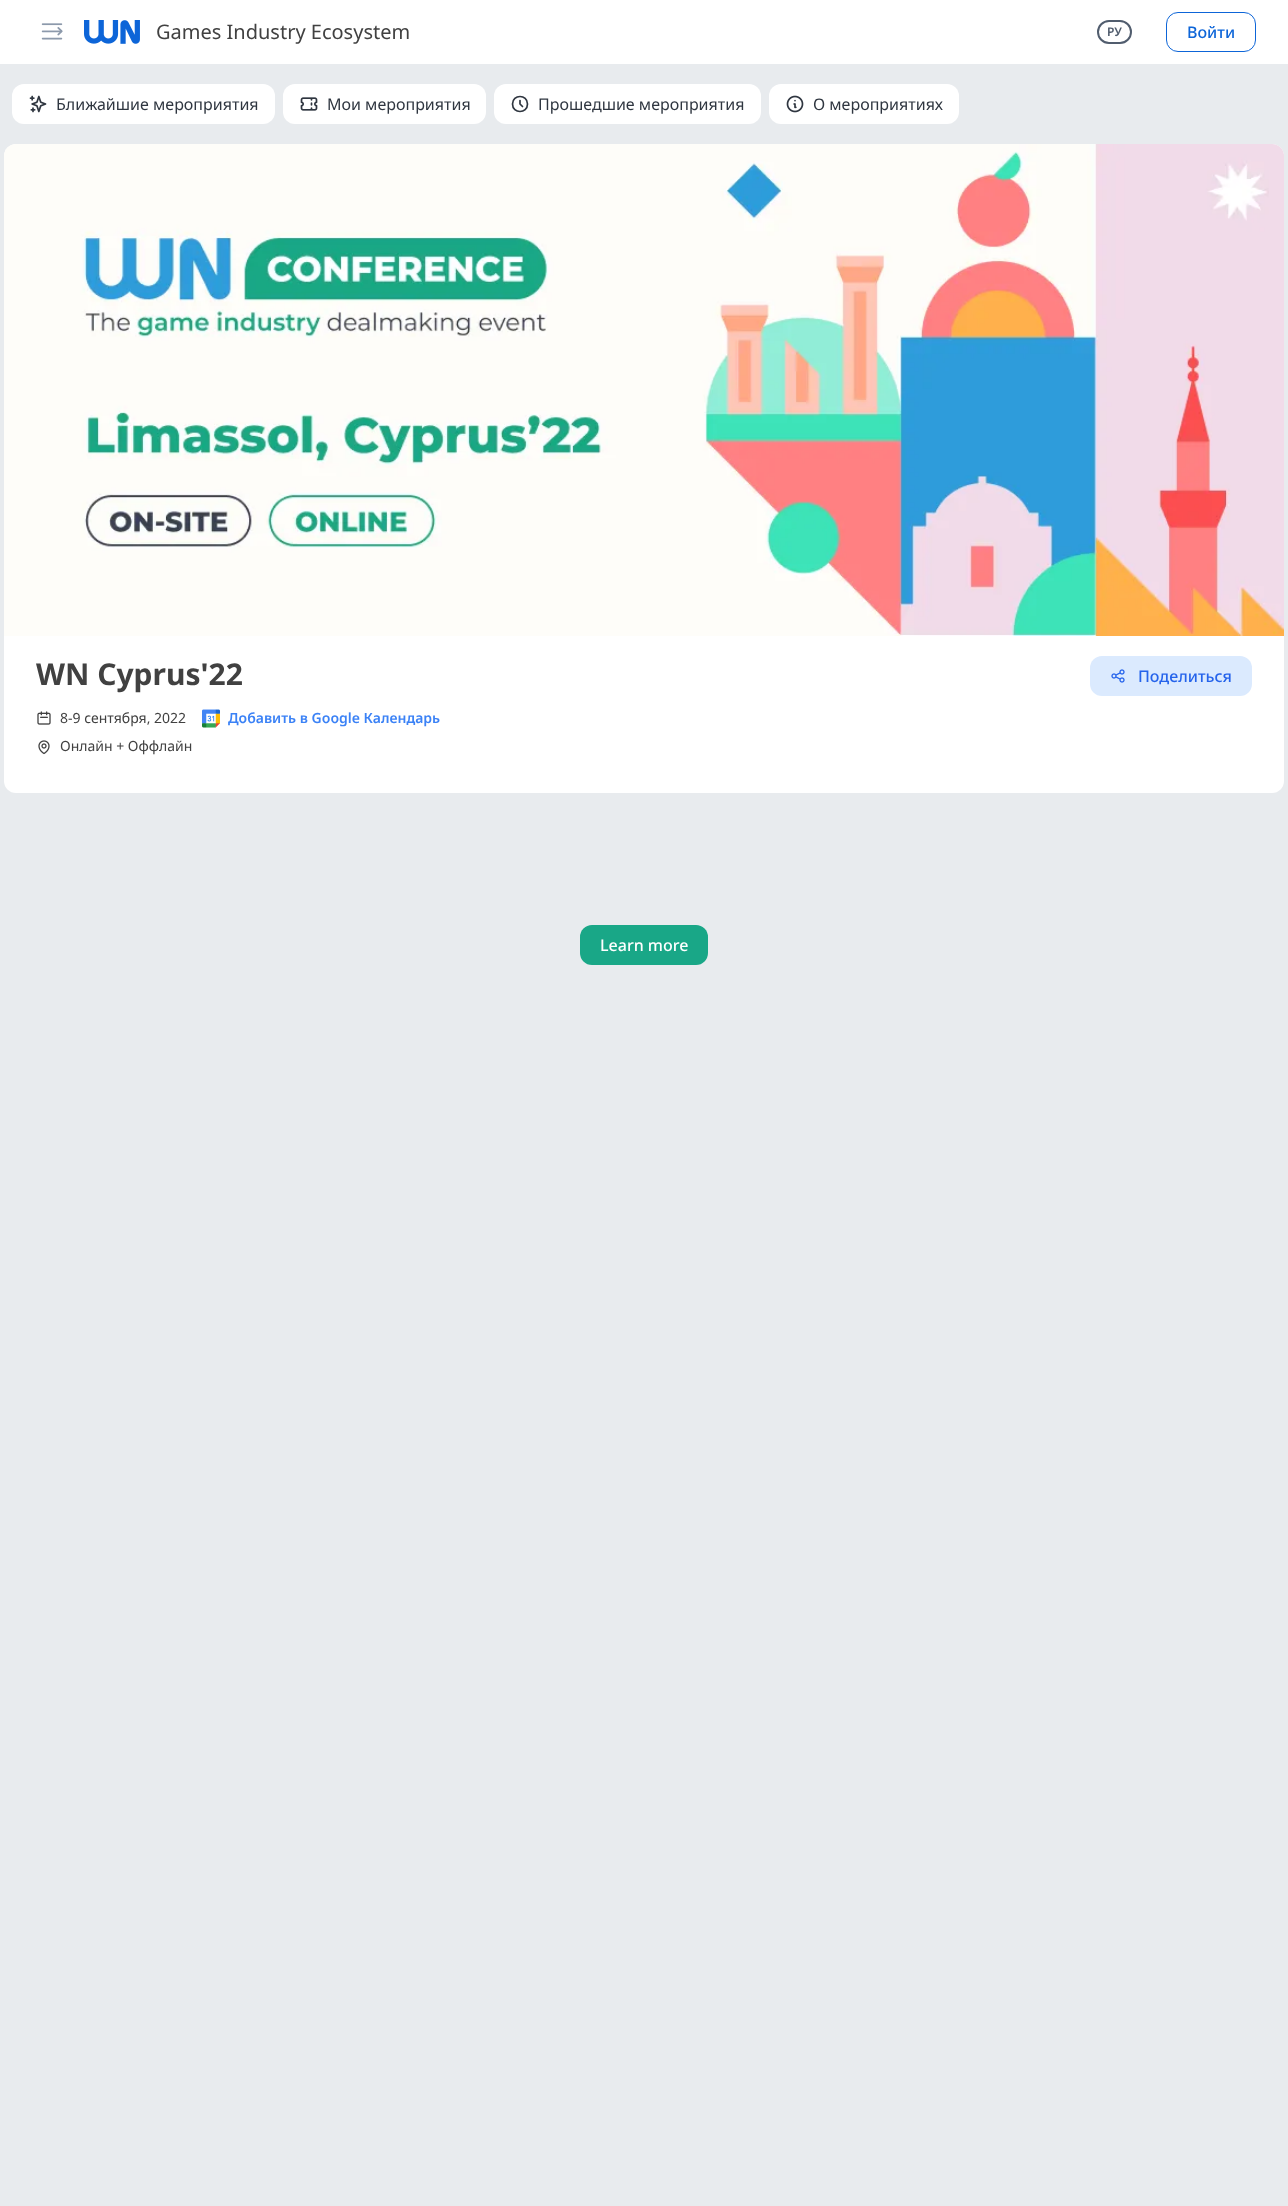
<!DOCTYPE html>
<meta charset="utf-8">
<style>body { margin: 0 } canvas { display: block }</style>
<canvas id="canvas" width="1288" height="2206"></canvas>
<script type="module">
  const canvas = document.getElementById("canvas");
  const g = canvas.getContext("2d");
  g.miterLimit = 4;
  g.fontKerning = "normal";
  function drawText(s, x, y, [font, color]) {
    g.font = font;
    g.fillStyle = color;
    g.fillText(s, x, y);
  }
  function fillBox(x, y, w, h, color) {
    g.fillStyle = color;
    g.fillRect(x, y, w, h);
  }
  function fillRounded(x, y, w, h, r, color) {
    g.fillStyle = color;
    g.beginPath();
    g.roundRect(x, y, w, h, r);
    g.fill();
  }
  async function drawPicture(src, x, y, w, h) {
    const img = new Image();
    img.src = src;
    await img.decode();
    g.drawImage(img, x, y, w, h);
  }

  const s1 = ["20px Noto Sans", "#414141"];
  const s2 = ["600 12px Noto Sans", "#515D6E"];
  const s3 = ["500 16px Noto Sans", "#0D65D8"];
  const s4 = ["16px Noto Sans", "#2F3640"];
  const s5 = ["bold 30px Noto Sans", "#414141"];
  const s6 = ["14px Noto Sans", "#414141"];
  const s7 = ["600 14px Noto Sans", "#3B82F6"];
  const s8 = ["500 16px Noto Sans", "#2563EB"];
  const s9 = ["500 16px Noto Sans", "#FFFFFF"];

  fillBox(0, 0, 1288, 2206, "#E8EBEE");
  fillBox(0, 0, 1288, 64, "#FFFFFF");
  await drawPicture("pic1.png", 41, 23, 22, 17);
  await drawPicture("pic2.png", 84, 20, 56, 24);
  drawText("Games Industry Ecosystem", 156, 39, s1);
  g.beginPath();
  g.roundRect(1098, 21, 33, 22, 11);
  g.strokeStyle = "#515D6E";
  g.lineWidth = 2;
  g.stroke();
  drawText("РУ", 1107, 36, s2);
  g.beginPath();
  g.roundRect(1166.5, 12.5, 89, 39, 11.5);
  g.strokeStyle = "#0D65D8";
  g.lineWidth = 1;
  g.stroke();
  drawText("Войти", 1187, 38, s3);
  fillRounded(12, 84, 263, 40, 12, "#FFFFFF");
  await drawPicture("pic3.png", 29, 95, 18, 18);
  drawText("Ближайшие мероприятия", 56, 110, s4);
  fillRounded(283, 84, 203, 40, 12, "#FFFFFF");
  await drawPicture("pic4.png", 300, 97, 18, 14);
  drawText("Мои мероприятия", 327, 110, s4);
  fillRounded(494, 84, 267, 40, 12, "#FFFFFF");
  g.beginPath();
  g.moveTo(520, 100.5);
  g.lineTo(520, 104);
  g.lineTo(522.5, 106.5);
  g.moveTo(527.5, 104);
  g.bezierCurveTo(527.5, 114, 512.5, 114, 512.5, 104);
  g.bezierCurveTo(512.5, 94, 527.5, 94, 527.5, 104);
  g.closePath();
  g.strokeStyle = "#2F3640";
  g.lineWidth = 1.7;
  g.lineCap = "round";
  g.lineJoin = "round";
  g.stroke();
  drawText("Прошедшие мероприятия", 538, 110, s4);
  fillRounded(769, 84, 190, 40, 12, "#FFFFFF");
  await drawPicture("pic5.png", 786, 95, 18, 18);
  drawText("О мероприятиях", 813, 110, s4);
  fillRounded(4, 144, 1280, 649, 12, "#FFFFFF");
  await drawPicture("pic6.png", 4, 144, 1280, 492);
  drawText("WN Cyprus'22", 36, 685, s5);
  await drawPicture("pic7.png", 37, 711, 14, 14);
  drawText("8-9 сентября, 2022", 60, 723, s6);
  await drawPicture("pic8.png", 202, 709, 18, 19);
  drawText("Добавить в Google Календарь", 228, 723, s7);
  await drawPicture("pic9.png", 38, 740, 12, 15);
  drawText("Онлайн + Оффлайн", 60, 751, s6);
  fillRounded(1090, 656, 162, 40, 12, "#DBEAFE");
  await drawPicture("pic10.png", 1111, 669, 14, 14);
  drawText("Поделиться", 1138, 682, s8);
  fillRounded(580, 925, 128, 40, 12, "#19A787");
  drawText("Learn more", 600, 951, s9);
</script>
